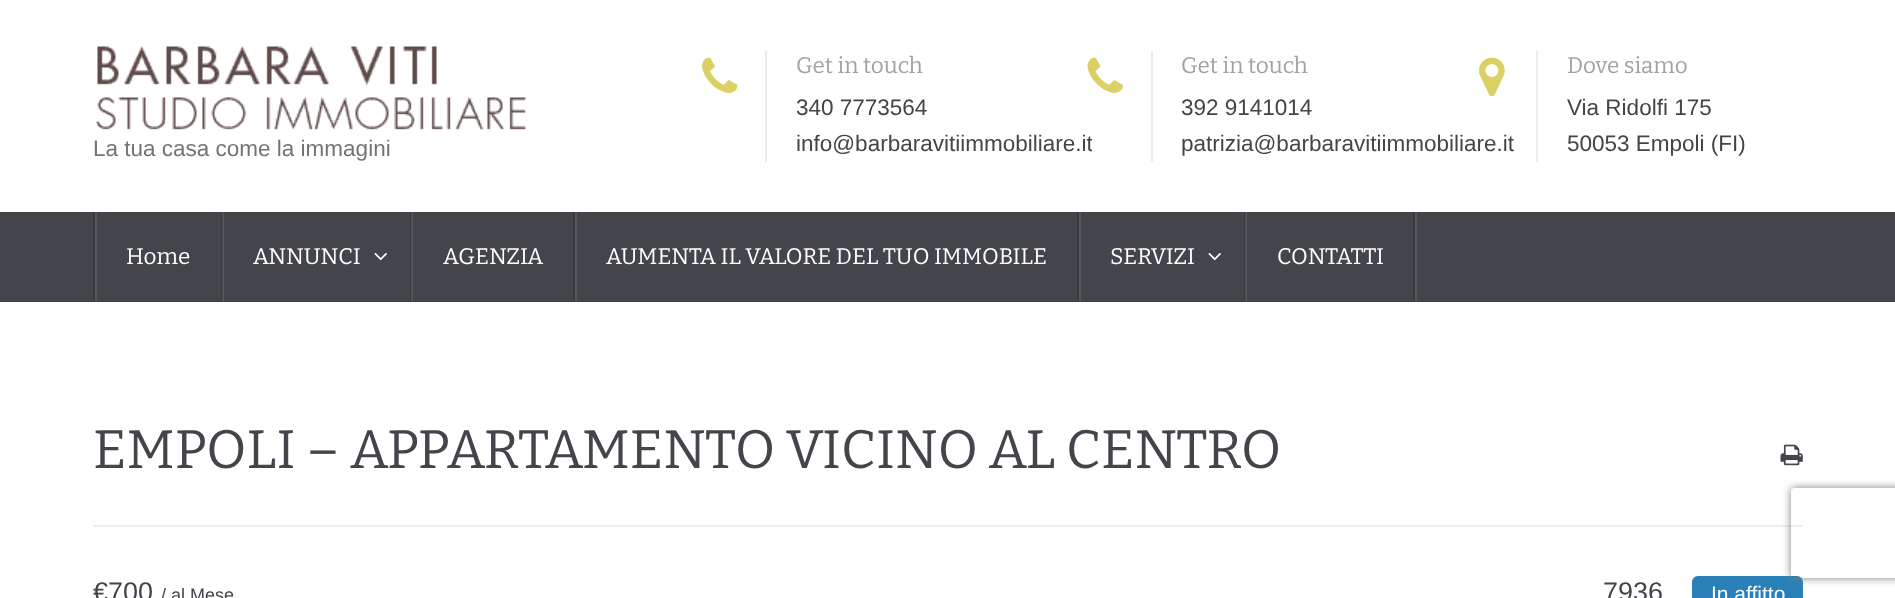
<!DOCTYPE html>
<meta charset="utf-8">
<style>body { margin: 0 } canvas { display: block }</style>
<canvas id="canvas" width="1895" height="598"></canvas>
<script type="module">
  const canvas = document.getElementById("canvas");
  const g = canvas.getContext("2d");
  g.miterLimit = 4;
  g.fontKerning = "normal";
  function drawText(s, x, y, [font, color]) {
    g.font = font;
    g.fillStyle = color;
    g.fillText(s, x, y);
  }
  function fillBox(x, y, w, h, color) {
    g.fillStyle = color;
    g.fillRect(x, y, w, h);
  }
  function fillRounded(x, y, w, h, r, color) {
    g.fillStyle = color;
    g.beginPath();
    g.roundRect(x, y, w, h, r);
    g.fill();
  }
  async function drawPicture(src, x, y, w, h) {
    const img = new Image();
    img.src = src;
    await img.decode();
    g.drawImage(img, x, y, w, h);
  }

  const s1 = ["22.5px Liberation Sans", "#727477"];
  const s2 = ["100 22.5px Bitter", "#A1A2A5"];
  const s3 = ["22.5px Liberation Sans", "#43454A"];
  const s4 = ["100 22.5px Bitter", "#FFFFFF"];
  const s5 = ["100 54px Bitter", "#43454A"];
  const s6 = ["27px Liberation Sans", "#43454A"];
  const s7 = ["18px Liberation Sans", "#43454A"];
  const s8 = ["21px Liberation Sans", "#FFFFFF"];

  fillBox(0, 0, 1895, 598, "#FFFFFF");
  await drawPicture("pic1.png", 95, 46, 432, 84);
  drawText("La tua casa come la immagini", 93, 156, s1);
  await drawPicture("pic2.png", 702, 57, 36, 36);
  fillBox(765, 51, 2, 111, "#ECECED");
  drawText("Get in touch", 796, 73, s2);
  drawText("340 7773564", 796, 115, s3);
  g.save();
  g.beginPath();
  g.rect(767, 51, 325, 111);
  g.clip();
  drawText("info@barbaravitiimmobiliare.it", 796, 151, s3);
  g.restore();
  await drawPicture("pic3.png", 1087, 57, 36, 36);
  fillBox(1151, 51, 2, 111, "#ECECED");
  drawText("Get in touch", 1181, 73, s2);
  drawText("392 9141014", 1181, 115, s3);
  drawText("patrizia@barbaravitiimmobiliare.it", 1181, 151, s3);
  await drawPicture("pic4.png", 1479, 57, 26, 40);
  fillBox(1536, 51, 2, 111, "#ECECED");
  drawText("Dove siamo", 1567, 73, s2);
  drawText("Via Ridolfi 175", 1567, 115, s3);
  drawText("50053 Empoli (FI)", 1567, 151, s3);
  fillBox(0, 212, 1895, 90, "#43454A");
  fillBox(1246, 212, 1, 90, "#56585C");
  fillBox(412, 212, 1, 90, "#56585C");
  fillBox(223, 212, 1, 90, "#56585C");
  fillBox(1415, 212, 2, 90, "#56585C");
  fillBox(93, 212, 2, 90, "#393B3F");
  fillBox(221, 212, 1, 90, "#393B3F");
  fillBox(222, 212, 1, 90, "#4D4F52");
  fillBox(95, 212, 2, 90, "#56585C");
  drawText("Home", 126, 264, s4);
  fillBox(410, 212, 1, 90, "#393B3F");
  fillBox(411, 212, 1, 90, "#4D4F52");
  drawText("ANNUNCI", 253, 264, s4);
  await drawPicture("pic5.png", 374, 253, 13, 8);
  fillBox(573, 212, 2, 90, "#393B3F");
  drawText("AGENZIA", 443, 264, s4);
  fillBox(1077, 212, 2, 90, "#393B3F");
  fillBox(575, 212, 2, 90, "#56585C");
  drawText("AUMENTA IL VALORE DEL TUO IMMOBILE", 606, 264, s4);
  fillBox(1244, 212, 1, 90, "#393B3F");
  fillBox(1245, 212, 1, 90, "#4D4F52");
  fillBox(1079, 212, 2, 90, "#56585C");
  drawText("SERVIZI", 1110, 264, s4);
  await drawPicture("pic5.png", 1208, 253, 13, 8);
  fillBox(1413, 212, 2, 90, "#393B3F");
  drawText("CONTATTI", 1277, 264, s4);
  fillBox(93, 525, 1710, 2, "#EEEEEE");
  drawText("EMPOLI – APPARTAMENTO VICINO AL CENTRO", 93, 468, s5);
  await drawPicture("pic6.png", 1780, 444, 23, 22);
  drawText("€700", 93, 601, s6);
  drawText("/ al Mese", 161, 601, s7);
  drawText("7936", 1603, 601, s6);
  fillRounded(1692, 576, 111, 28, 6, "#2980B9");
  drawText("In affitto", 1711, 601, s8);
  g.save();
  g.beginPath();
  g.moveTo(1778, 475);
  g.lineTo(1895, 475);
  g.lineTo(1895, 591);
  g.lineTo(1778, 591);
  g.closePath();
  g.moveTo(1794, 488);
  g.lineTo(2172, 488);
  g.bezierCurveTo(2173.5, 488, 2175, 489.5, 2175, 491);
  g.lineTo(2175, 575);
  g.bezierCurveTo(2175, 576.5, 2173.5, 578, 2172, 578);
  g.lineTo(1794, 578);
  g.bezierCurveTo(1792.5, 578, 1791, 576.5, 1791, 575);
  g.lineTo(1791, 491);
  g.bezierCurveTo(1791, 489.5, 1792.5, 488, 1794, 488);
  g.closePath();
  g.clip("evenodd");
  g.fillStyle = "#808080";
  g.filter = "blur(4px)";
  g.beginPath();
  g.roundRect(1791, 488, 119, 90, 3);
  g.fill();
  g.filter = "none";
  g.restore();
</script>
